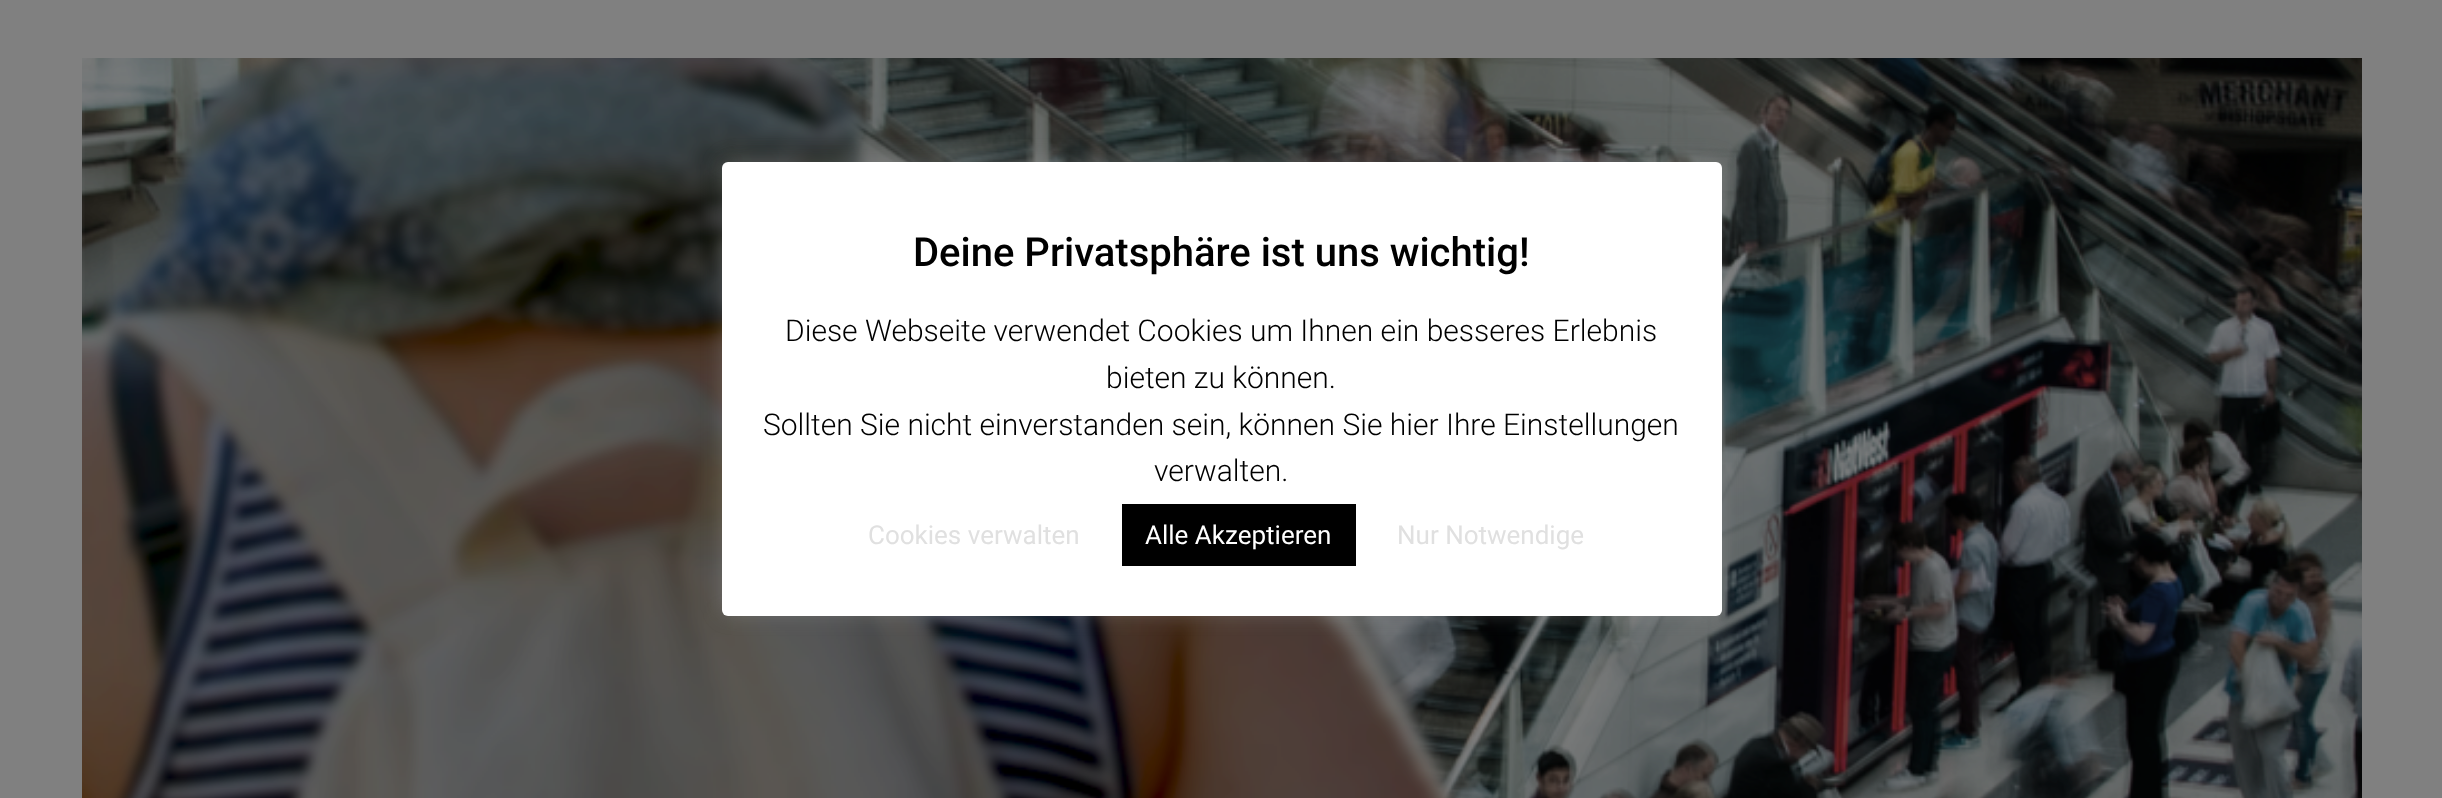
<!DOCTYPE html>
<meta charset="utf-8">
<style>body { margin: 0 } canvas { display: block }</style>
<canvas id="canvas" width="2442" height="798"></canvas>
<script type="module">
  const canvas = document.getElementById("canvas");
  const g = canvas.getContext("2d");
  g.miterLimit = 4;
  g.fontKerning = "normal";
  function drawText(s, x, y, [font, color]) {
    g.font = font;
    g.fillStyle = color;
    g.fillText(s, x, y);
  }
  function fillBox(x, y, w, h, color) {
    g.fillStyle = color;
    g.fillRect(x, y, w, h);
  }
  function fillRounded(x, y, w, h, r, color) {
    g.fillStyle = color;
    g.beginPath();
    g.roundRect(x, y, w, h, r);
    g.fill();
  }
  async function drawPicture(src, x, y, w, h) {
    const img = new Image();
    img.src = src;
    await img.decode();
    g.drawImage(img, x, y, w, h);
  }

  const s1 = ["500 40px Roboto", "#000000"];
  const s2 = ["300 30px Roboto", "#000000"];
  const s3 = ["26px Roboto", "#E0E0E0"];
  const s4 = ["26px Roboto", "#FFFFFF"];

  fillBox(0, 0, 2442, 798, "#808080");
  await drawPicture("pic1.png", 82, 58, 2280, 740);
  g.fillStyle = "rgba(172, 171, 171, 0.3)";
  g.filter = "blur(10px)";
  g.beginPath();
  g.roundRect(722, 160, 1000, 454, 6);
  g.fill();
  g.filter = "none";
  fillRounded(722, 162, 1000, 454, 6, "#FFFFFF");
  drawText("Deine Privatsphäre ist uns wichtig!", 913, 266, s1);
  drawText("Diese Webseite verwendet Cookies um Ihnen ein besseres Erlebnis", 785, 341, s2);
  drawText("bieten zu können.", 1106, 388, s2);
  drawText("Sollten Sie nicht einverstanden sein, können Sie hier Ihre Einstellungen", 763, 435, s2);
  drawText("verwalten.", 1154, 481, s2);
  drawText("Cookies verwalten", 868, 544, s3);
  fillBox(1122, 504, 234, 62, "#000000");
  drawText("Alle Akzeptieren", 1145, 544, s4);
  drawText("Nur Notwendige", 1397, 544, s3);
</script>
